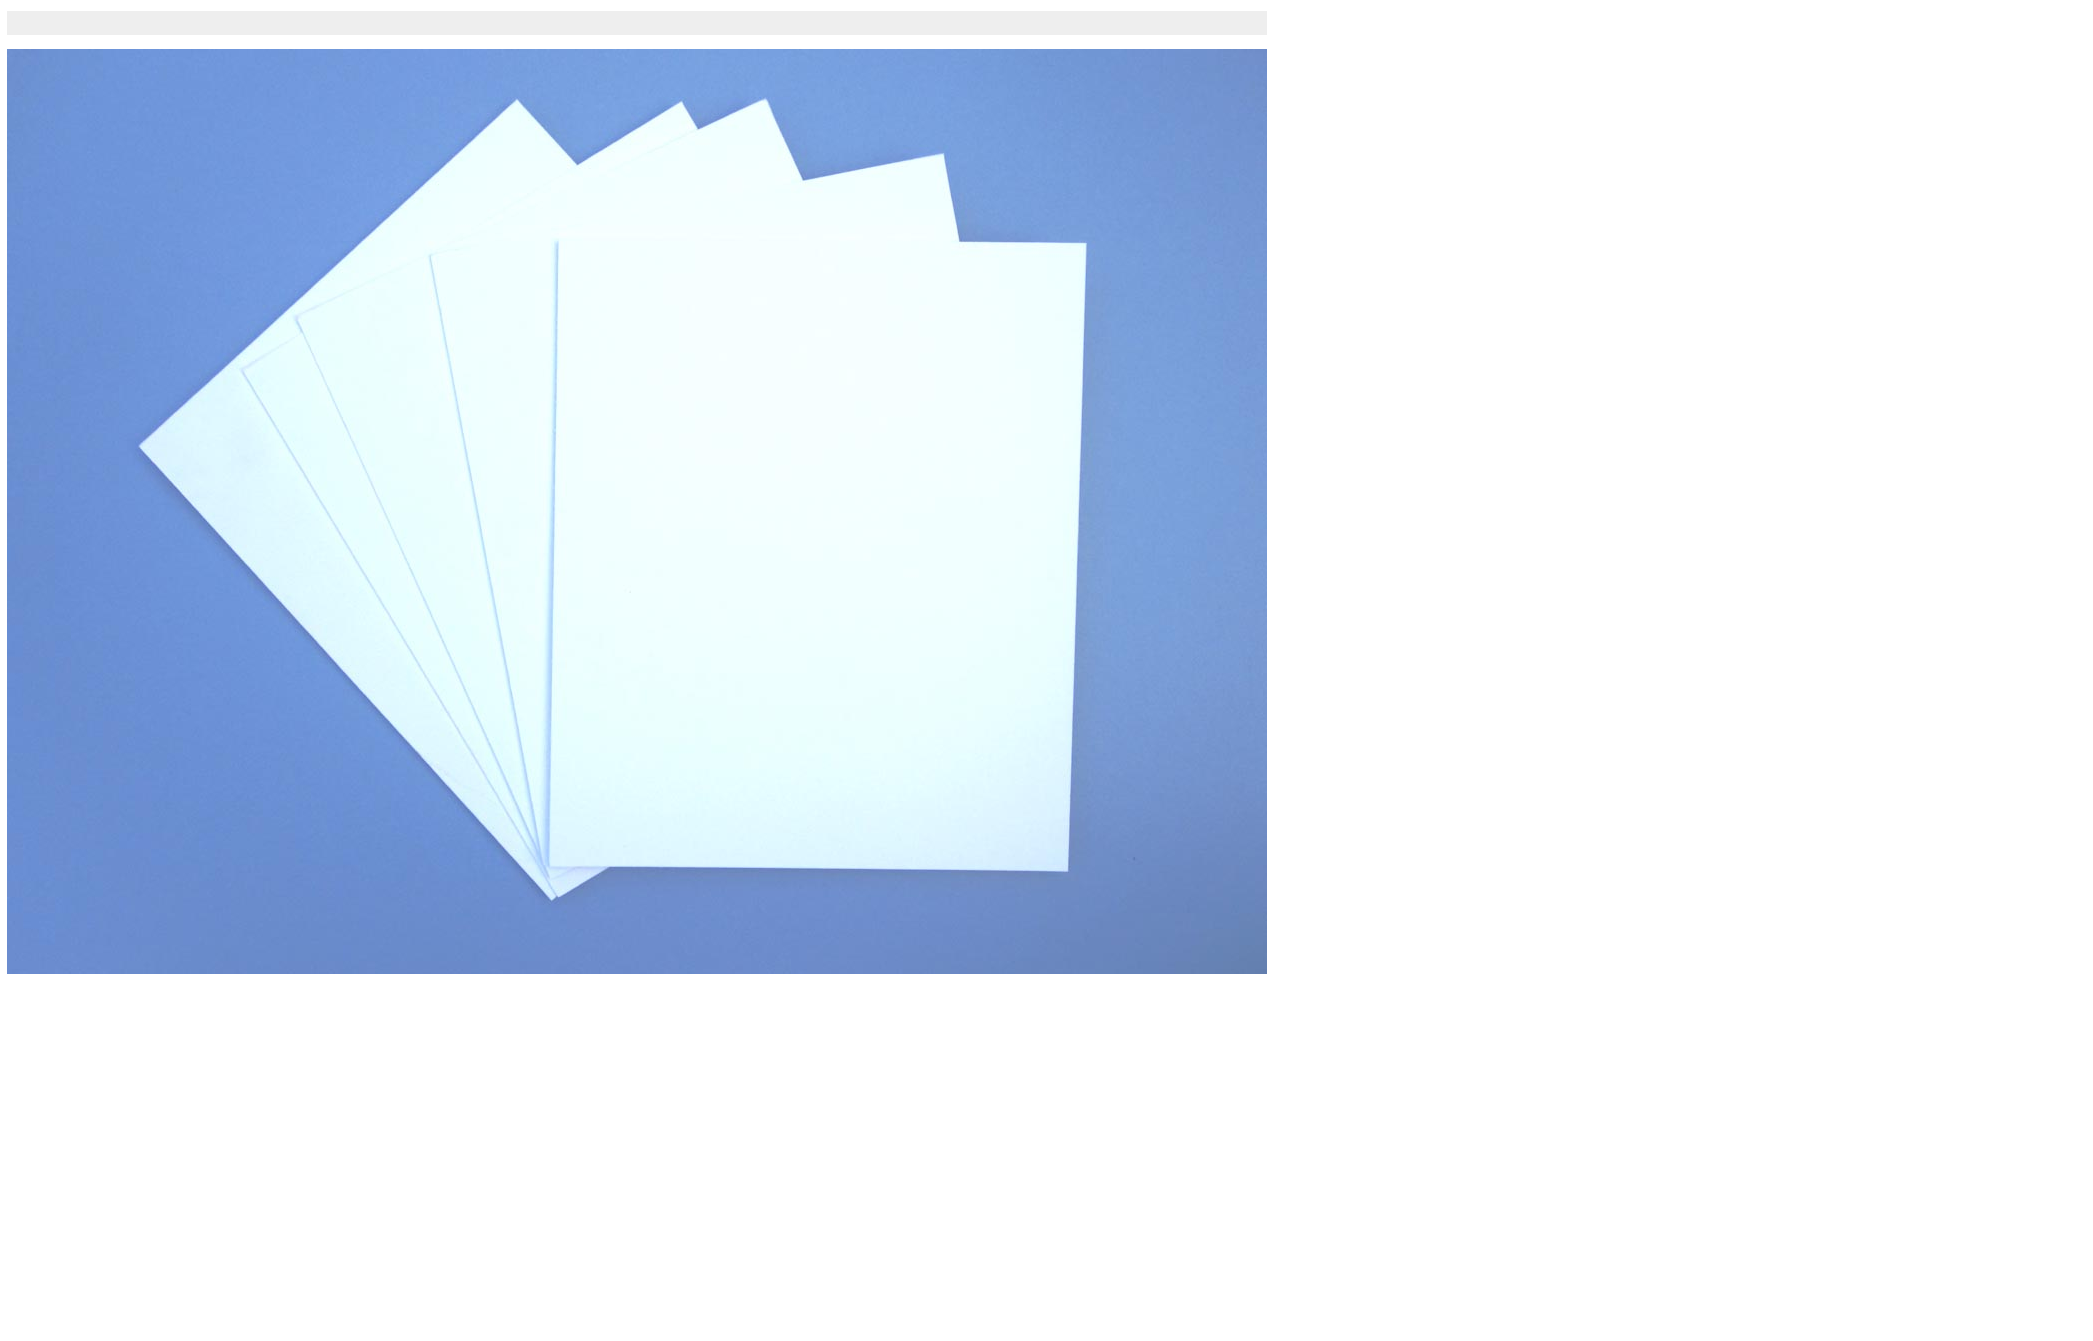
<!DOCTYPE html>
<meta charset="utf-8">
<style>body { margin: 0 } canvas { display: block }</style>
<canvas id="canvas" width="2093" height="1341"></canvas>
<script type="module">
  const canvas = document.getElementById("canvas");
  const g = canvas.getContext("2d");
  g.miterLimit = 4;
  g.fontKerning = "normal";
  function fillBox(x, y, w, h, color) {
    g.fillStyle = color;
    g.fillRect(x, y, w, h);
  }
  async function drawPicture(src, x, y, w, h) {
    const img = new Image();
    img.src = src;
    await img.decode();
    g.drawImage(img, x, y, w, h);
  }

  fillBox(0, 0, 2093, 1341, "#FFFFFF");
  fillBox(7, 11, 1260, 24, "#EEEEEE");
  await drawPicture("pic1.png", 7, 49, 1260, 925);
</script>
